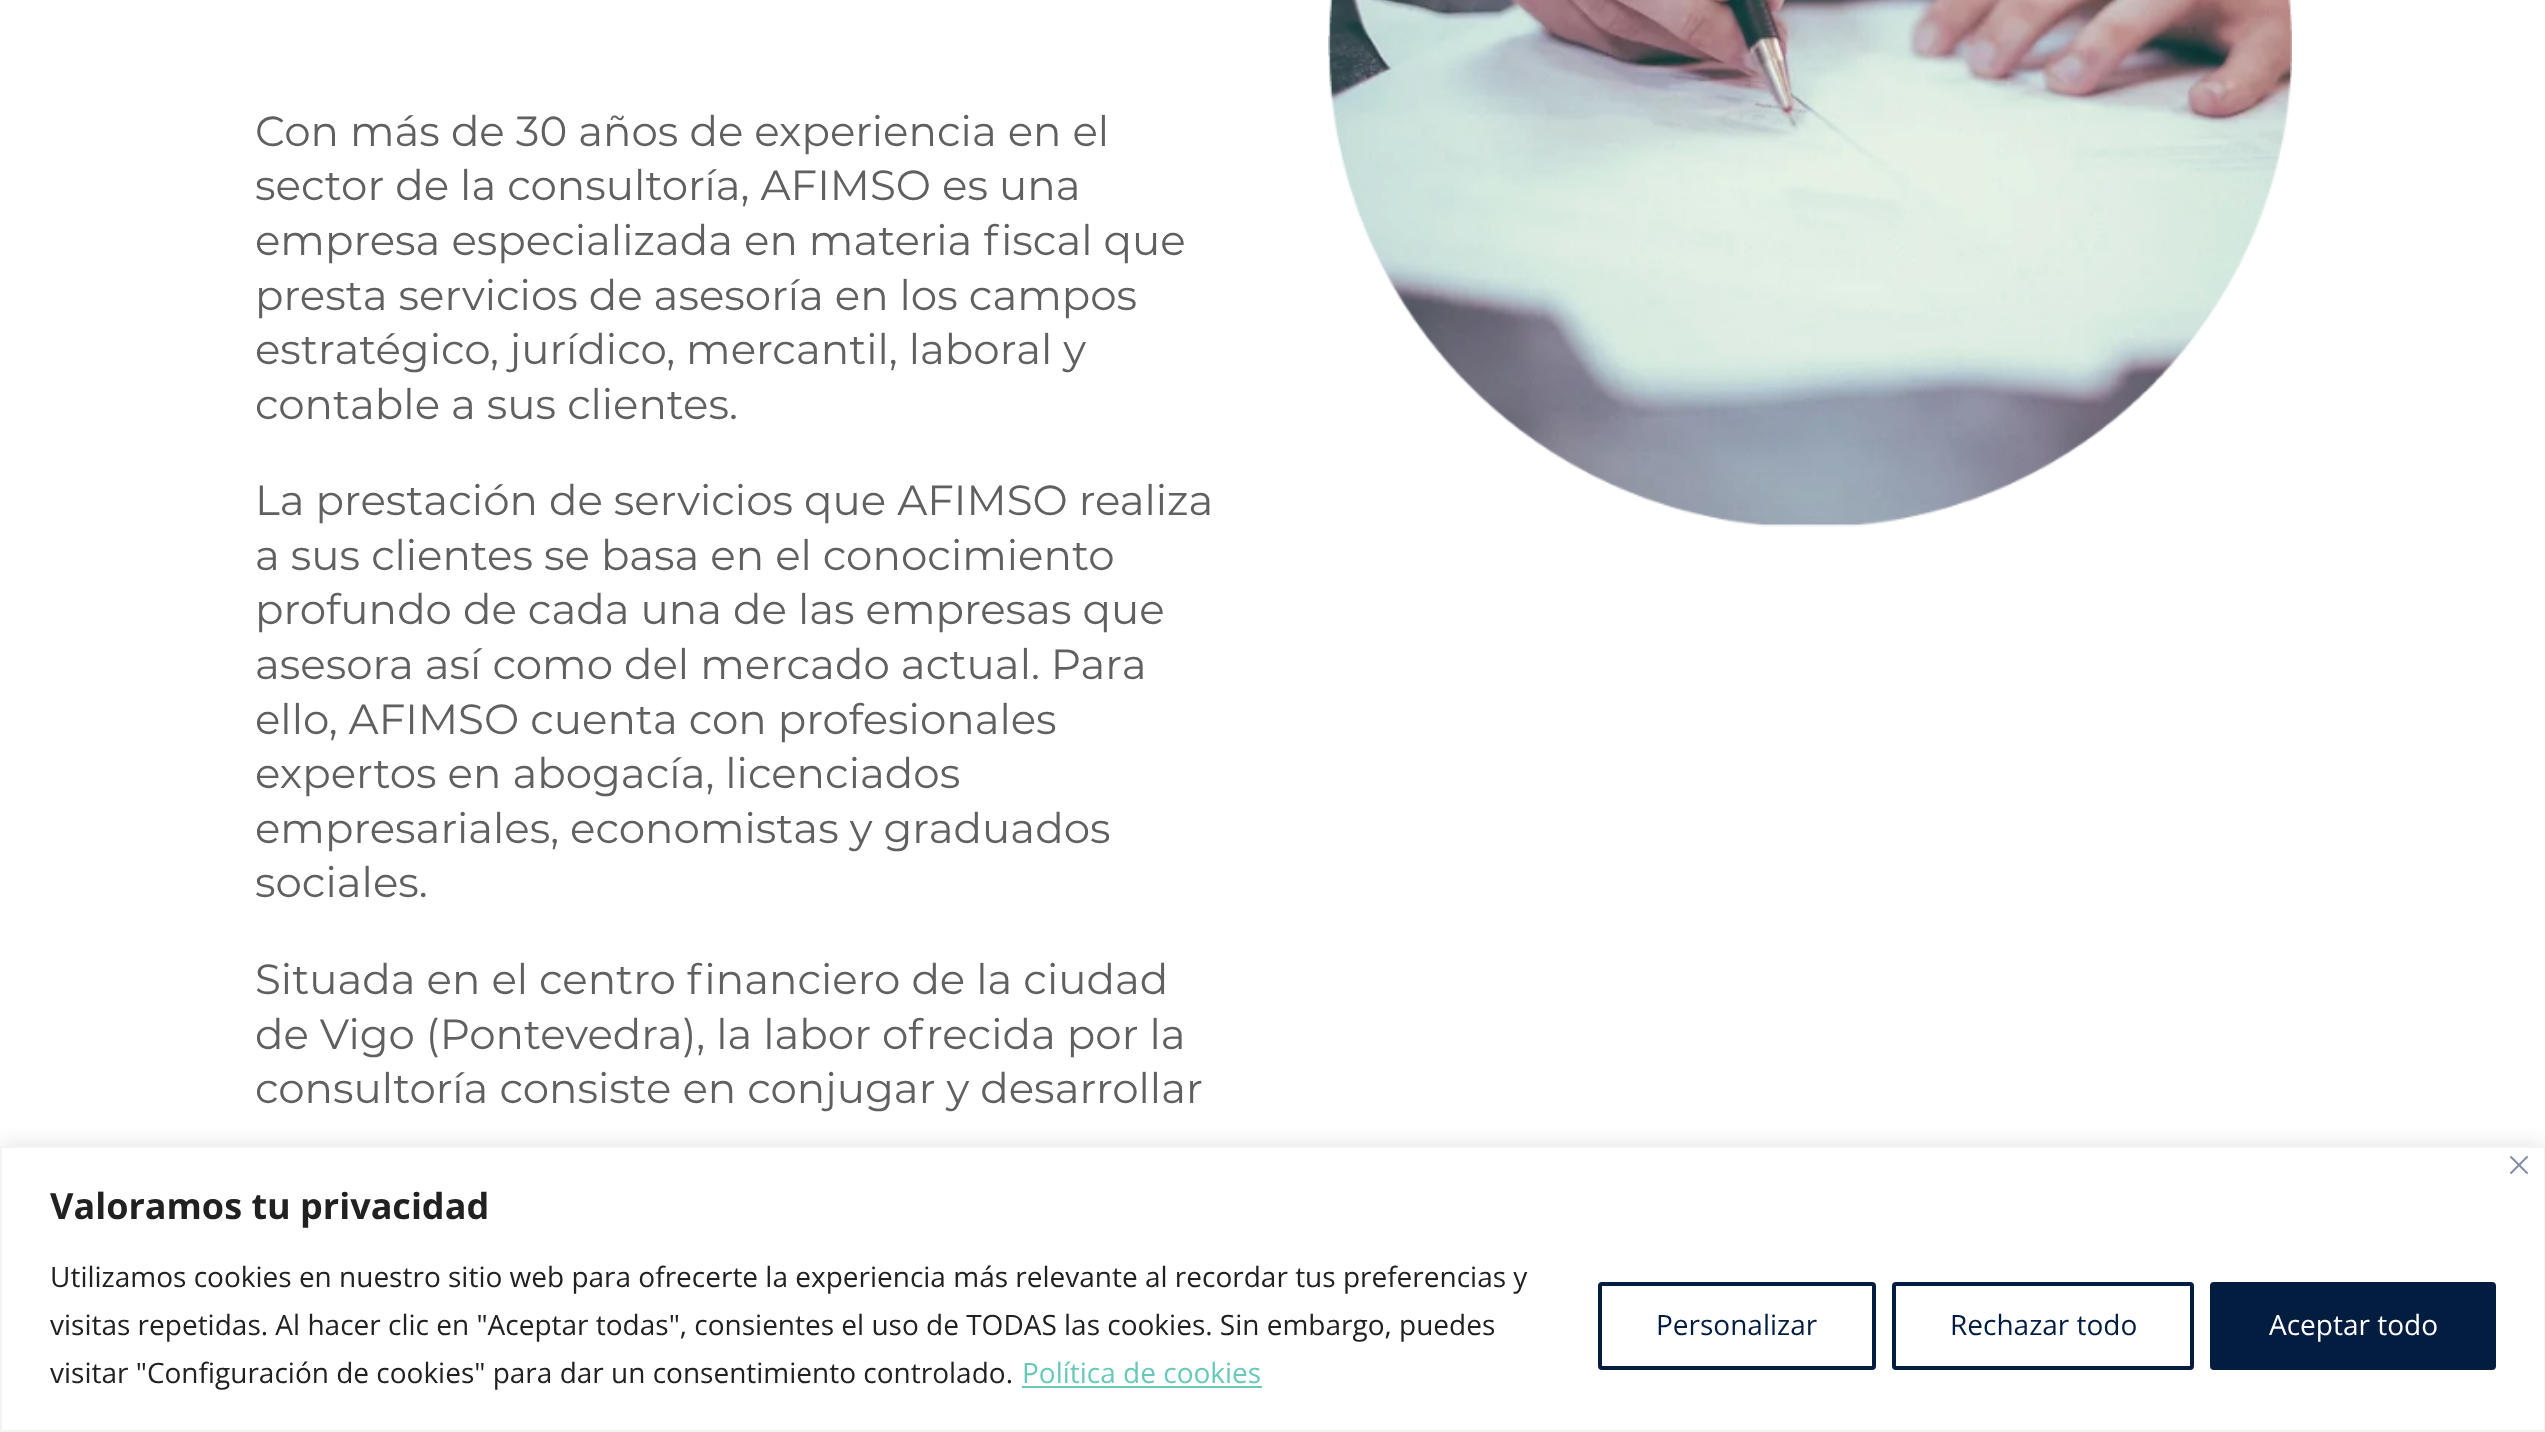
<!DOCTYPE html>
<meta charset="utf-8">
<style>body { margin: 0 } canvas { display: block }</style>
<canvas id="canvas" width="2545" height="1432"></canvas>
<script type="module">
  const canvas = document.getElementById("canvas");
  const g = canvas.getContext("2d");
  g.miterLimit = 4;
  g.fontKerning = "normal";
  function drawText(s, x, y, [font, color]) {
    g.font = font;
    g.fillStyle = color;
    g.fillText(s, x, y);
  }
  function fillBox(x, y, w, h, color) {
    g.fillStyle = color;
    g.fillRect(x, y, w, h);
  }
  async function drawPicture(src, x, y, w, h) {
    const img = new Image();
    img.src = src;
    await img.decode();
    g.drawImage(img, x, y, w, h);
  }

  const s1 = ["42px Montserrat", "#606060"];
  const s2 = ["bold 36px Open Sans", "#212121"];
  const s3 = ["28px Open Sans", "#212121"];
  const s4 = ["28px Open Sans", "#69C9B9"];
  const s5 = ["28px Open Sans", "#031D40"];
  const s6 = ["28px Open Sans", "#FFFFFF"];

  fillBox(0, 0, 2545, 1432, "#FFFFFF");
  drawText("Con más de 30 años de experiencia en el", 255, 146, s1);
  drawText("sector de la consultoría, AFIMSO es una", 255, 200, s1);
  drawText("empresa especializada en materia fiscal que", 255, 255, s1);
  drawText("presta servicios de asesoría en los campos", 255, 310, s1);
  drawText("estratégico, jurídico, mercantil, laboral y", 255, 364, s1);
  drawText("contable a sus clientes.", 255, 419, s1);
  drawText("La prestación de servicios que AFIMSO realiza", 255, 515, s1);
  drawText("a sus clientes se basa en el conocimiento", 255, 570, s1);
  drawText("profundo de cada una de las empresas que", 255, 624, s1);
  drawText("asesora así como del mercado actual. Para", 255, 679, s1);
  drawText("ello, AFIMSO cuenta con profesionales", 255, 734, s1);
  drawText("expertos en abogacía, licenciados", 255, 788, s1);
  drawText("empresariales, economistas y graduados", 255, 843, s1);
  drawText("sociales.", 255, 897, s1);
  drawText("Situada en el centro financiero de la ciudad", 255, 994, s1);
  drawText("de Vigo (Pontevedra), la labor ofrecida por la", 255, 1049, s1);
  drawText("consultoría consiste en conjugar y desarrollar", 255, 1103, s1);
  await drawPicture("pic1.png", 1328, 0, 964, 527);
  g.fillStyle = "rgba(172, 171, 171, 0.3)";
  g.filter = "blur(10px)";
  g.beginPath();
  g.rect(0, 1144, 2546, 286);
  g.fill();
  g.filter = "none";
  g.fillStyle = "#FFFFFF";
  g.beginPath();
  g.rect(1, 1147, 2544, 284);
  g.fill();
  g.strokeStyle = "#F4F4F4";
  g.lineWidth = 2;
  g.stroke();
  await drawPicture("pic2.png", 2510, 1156, 18, 18);
  drawText("Valoramos tu privacidad", 50, 1219, s2);
  drawText("Utilizamos cookies en nuestro sitio web para ofrecerte la experiencia más relevante al recordar tus preferencias y", 50, 1287, s3);
  drawText("visitas repetidas. Al hacer clic en \"Aceptar todas\", consientes el uso de TODAS las cookies. Sin embargo, puedes", 50, 1335, s3);
  drawText("visitar \"Configuración de cookies\" para dar un consentimiento controlado.", 50, 1383, s3);
  drawText("Política de cookies", 1022, 1383, s4);
  fillBox(1022, 1386, 240, 2, "#69C9B9");
  g.beginPath();
  g.roundRect(1600, 1284, 274, 84, 2);
  g.strokeStyle = "#031D40";
  g.lineWidth = 4;
  g.stroke();
  drawText("Personalizar", 1656, 1335, s5);
  g.beginPath();
  g.roundRect(1894, 1284, 298, 84, 2);
  g.stroke();
  drawText("Rechazar todo", 1950, 1335, s5);
  g.beginPath();
  g.roundRect(2212, 1284, 282, 84, 2);
  g.fill();
  g.stroke();
  drawText("Aceptar todo", 2269, 1335, s6);
</script>
